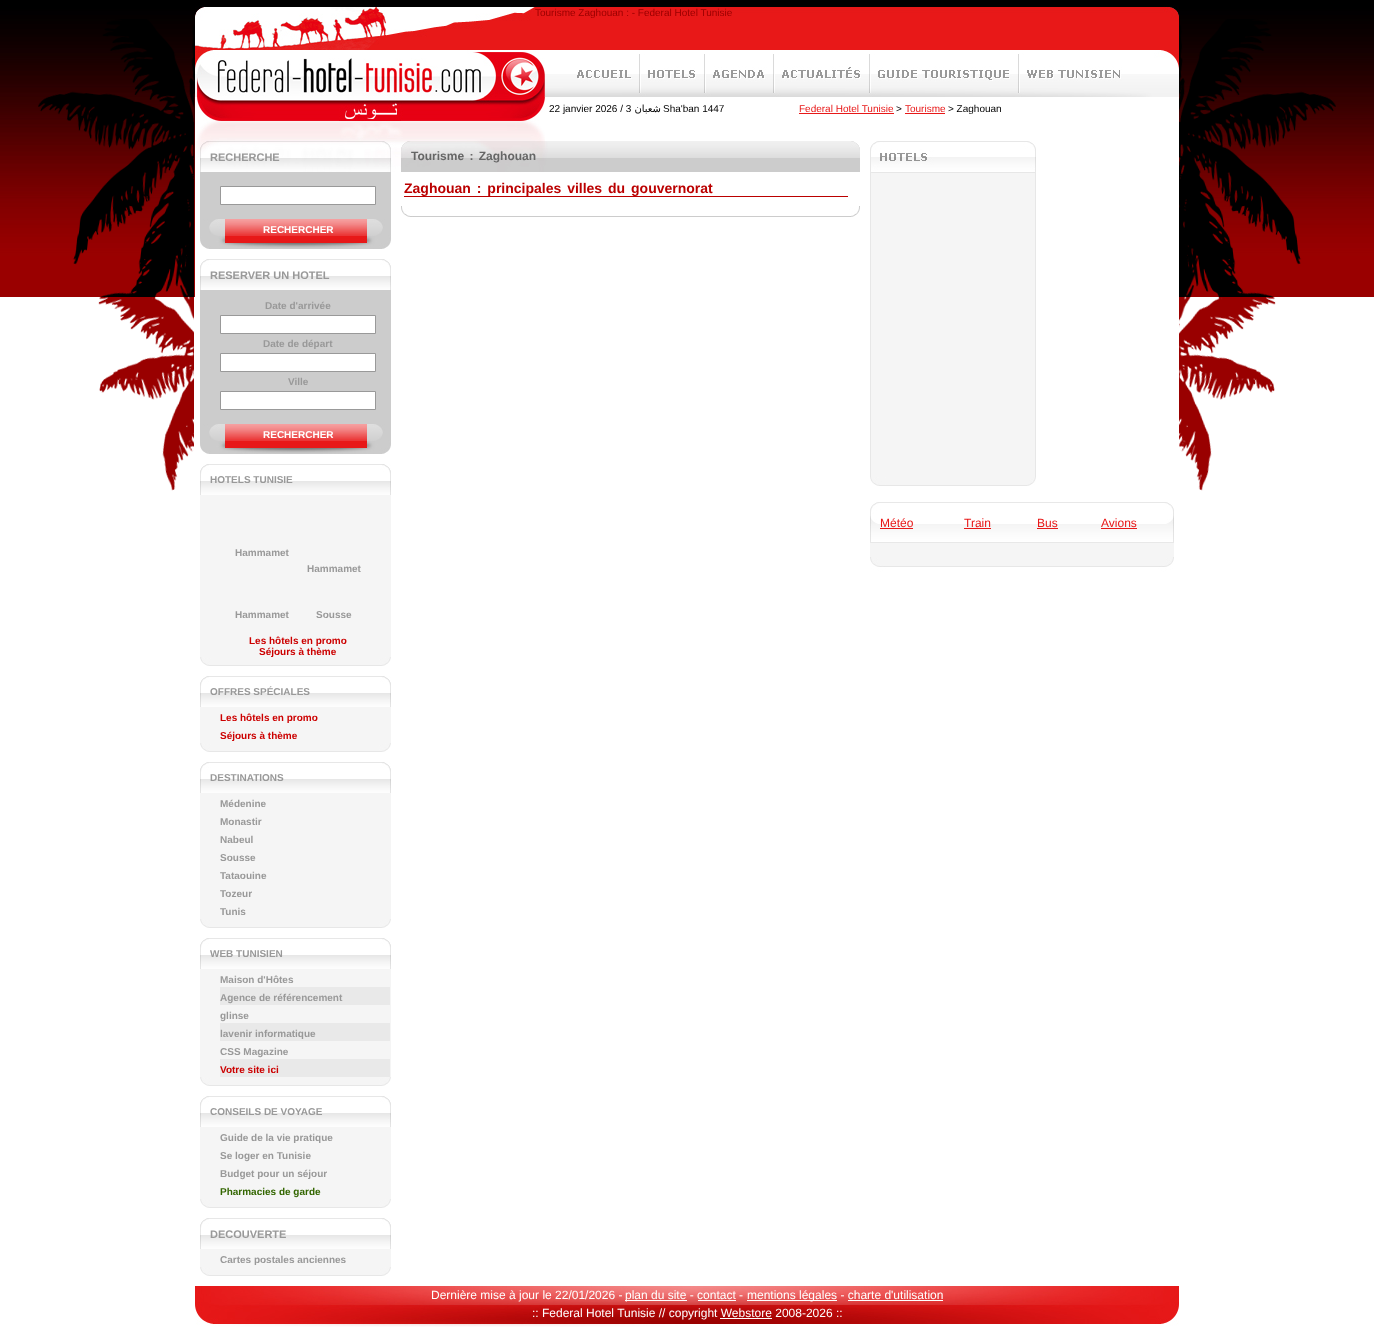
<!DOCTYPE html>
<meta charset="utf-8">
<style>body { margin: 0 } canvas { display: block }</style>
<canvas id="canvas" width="1374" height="1334"></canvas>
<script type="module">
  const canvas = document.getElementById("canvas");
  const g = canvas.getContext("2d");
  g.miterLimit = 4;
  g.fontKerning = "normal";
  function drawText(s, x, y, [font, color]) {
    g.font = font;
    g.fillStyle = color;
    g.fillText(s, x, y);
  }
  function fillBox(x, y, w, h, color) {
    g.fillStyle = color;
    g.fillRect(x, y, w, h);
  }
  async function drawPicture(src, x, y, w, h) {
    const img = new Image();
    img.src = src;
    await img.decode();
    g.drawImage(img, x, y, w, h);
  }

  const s1 = ["10px Liberation Sans", "#990000"];
  const s2 = ["10px Liberation Sans", "#E81818"];
  const s3 = ["10px Liberation Sans", "#000000"];
  const s4 = ["bold 12px Liberation Sans", "#666666"];
  const s5 = ["bold 14px Liberation Sans", "#BB0000"];
  const s6 = ["10px DejaVu Sans", "#000000"];
  const s7 = ["bold 11px Liberation Sans", "#999999"];
  const s8 = ["bold 10px Liberation Sans", "#FFFFFF"];
  const s9 = ["bold 10px Liberation Sans", "#999999"];
  const s10 = ["bold 10px Liberation Sans", "#CC0000"];
  const s11 = ["bold 10px Liberation Sans", "#336600"];
  const s12 = ["12px Liberation Sans", "#E81818"];
  const s13 = ["12px Liberation Sans", "#FFFFFF"];

  fillBox(0, 0, 1374, 1334, "#FFFFFF");
  await drawPicture("pic1.png", 0, 0, 1374, 297);
  await drawPicture("pic2.png", 38, 19, 1298, 472);
  fillBox(195, 50, 984, 397, "#FFFFFF");
  await drawPicture("pic3.png", 195, 0, 984, 50);
  drawText("Tourisme Zaghouan : - Federal Hotel Tunisie", 535, 16, s1);
  await drawPicture("pic4.png", 195, 50, 350, 47);
  await drawPicture("pic5.png", 545, 70, 94, 27);
  await drawPicture("pic6.png", 639, 54, 65, 43);
  await drawPicture("pic7.png", 704, 54, 69, 43);
  await drawPicture("pic8.png", 773, 54, 96, 43);
  await drawPicture("pic9.png", 869, 54, 149, 43);
  await drawPicture("pic10.png", 1018, 50, 161, 47);
  await drawPicture("pic11.png", 197, 97, 348, 44);
  drawText("Federal Hotel Tunisie", 799, 112, s2);
  fillBox(799, 113, 95, 1, "#E81818");
  drawText(">", 896, 112, s3);
  drawText("Tourisme", 905, 112, s2);
  fillBox(905, 113, 40, 1, "#E81818");
  drawText("> Zaghouan", 948, 112, s3);
  await drawPicture("pic12.png", 401, 141, 459, 31);
  g.wordSpacing = "2px";
  drawText("Tourisme : Zaghouan", 411, 160, s4);
  fillBox(404, 196, 444, 1, "#BB0000");
  drawText("Zaghouan : principales villes du gouvernorat", 404, 193, s5);
  await drawPicture("pic13.png", 401, 206, 459, 11);
  g.wordSpacing = "0px";
  drawText("22 janvier 2026 / 3", 549, 112, s3);
  g.direction = "rtl";
  drawText("شعبان", 661, 112, s6);
  g.direction = "ltr";
  drawText("Sha'ban 1447", 663, 112, s3);
  fillBox(200, 172, 191, 47, "#CCCCCC");
  await drawPicture("pic14.png", 196, 141, 205, 31);
  drawText("RECHERCHE", 210, 161, s7);
  g.fillStyle = "#FFFFFF";
  g.beginPath();
  g.rect(220.5, 186.5, 155, 18);
  g.fill();
  g.strokeStyle = "#999999";
  g.stroke();
  await drawPicture("pic15.png", 200, 239, 191, 10);
  await drawPicture("pic16.png", 195, 219, 206, 20);
  drawText("RECHERCHER", 263, 233, s8);
  fillBox(200, 290, 191, 134, "#CCCCCC");
  await drawPicture("pic17.png", 200, 259, 191, 31);
  drawText("RESERVER UN HOTEL", 210, 279, s7);
  drawText("Date d'arrivée", 265, 309, s9);
  g.fillStyle = "#FFFFFF";
  g.beginPath();
  g.rect(220.5, 315.5, 155, 18);
  g.fill();
  g.stroke();
  drawText("Date de départ", 263, 347, s9);
  g.fillStyle = "#FFFFFF";
  g.beginPath();
  g.rect(220.5, 353.5, 155, 18);
  g.fill();
  g.stroke();
  drawText("Ville", 288, 385, s9);
  g.fillStyle = "#FFFFFF";
  g.beginPath();
  g.rect(220.5, 391.5, 155, 18);
  g.fill();
  g.stroke();
  await drawPicture("pic15.png", 200, 444, 191, 10);
  await drawPicture("pic16.png", 195, 424, 206, 20);
  drawText("RECHERCHER", 263, 438, s8);
  await drawPicture("pic17.png", 200, 464, 191, 31);
  drawText("HOTELS TUNISIE", 210, 483, s9);
  fillBox(200, 495, 191, 162, "#F5F5F5");
  drawText("Hammamet", 235, 556, s9);
  drawText("Hammamet", 307, 572, s9);
  drawText("Hammamet", 235, 618, s9);
  drawText("Sousse", 316, 618, s9);
  drawText("Les hôtels en promo", 249, 644, s10);
  await drawPicture("pic18.png", 200, 657, 191, 9);
  drawText("Séjours à thème", 259, 655, s10);
  await drawPicture("pic17.png", 200, 676, 191, 31);
  drawText("OFFRES SPÉCIALES", 210, 695, s9);
  fillBox(200, 707, 191, 36, "#F5F5F5");
  drawText("Les hôtels en promo", 220, 721, s10);
  drawText("Séjours à thème", 220, 739, s10);
  await drawPicture("pic18.png", 200, 743, 191, 9);
  await drawPicture("pic17.png", 200, 762, 191, 31);
  drawText("DESTINATIONS", 210, 781, s9);
  fillBox(200, 793, 191, 126, "#F5F5F5");
  drawText("Médenine", 220, 807, s9);
  drawText("Monastir", 220, 825, s9);
  drawText("Nabeul", 220, 843, s9);
  drawText("Sousse", 220, 861, s9);
  drawText("Tataouine", 220, 879, s9);
  drawText("Tozeur", 220, 897, s9);
  drawText("Tunis", 220, 915, s9);
  await drawPicture("pic18.png", 200, 919, 191, 9);
  await drawPicture("pic17.png", 200, 938, 191, 31);
  drawText("WEB TUNISIEN", 210, 957, s9);
  fillBox(200, 969, 191, 108, "#F5F5F5");
  drawText("Maison d'Hôtes", 220, 983, s9);
  fillBox(220, 987, 170, 18, "#E9E9E9");
  drawText("Agence de référencement", 220, 1001, s9);
  drawText("glinse", 220, 1019, s9);
  fillBox(220, 1023, 170, 18, "#E9E9E9");
  drawText("lavenir informatique", 220, 1037, s9);
  drawText("CSS Magazine", 220, 1055, s9);
  fillBox(220, 1059, 170, 18, "#E9E9E9");
  drawText("Votre site ici", 220, 1073, s10);
  await drawPicture("pic18.png", 200, 1077, 191, 9);
  await drawPicture("pic17.png", 200, 1096, 191, 31);
  drawText("CONSEILS DE VOYAGE", 210, 1115, s9);
  fillBox(200, 1127, 191, 72, "#F5F5F5");
  drawText("Guide de la vie pratique", 220, 1141, s9);
  drawText("Se loger en Tunisie", 220, 1159, s9);
  drawText("Budget pour un séjour", 220, 1177, s9);
  drawText("Pharmacies de garde", 220, 1195, s11);
  await drawPicture("pic18.png", 200, 1199, 191, 9);
  await drawPicture("pic17.png", 200, 1218, 191, 31);
  drawText("DECOUVERTE", 210, 1238, s7);
  fillBox(200, 1249, 191, 18, "#F5F5F5");
  drawText("Cartes postales anciennes", 220, 1263, s9);
  await drawPicture("pic18.png", 200, 1267, 191, 9);
  await drawPicture("pic19.png", 870, 141, 166, 345);
  fillBox(870, 543, 304, 14, "#F5F5F5");
  await drawPicture("pic20.png", 870, 502, 304, 41);
  drawText("Météo", 880, 527, s12);
  fillBox(880, 528, 33, 1, "#E81818");
  drawText("Train", 964, 527, s12);
  fillBox(964, 528, 27, 1, "#E81818");
  drawText("Bus", 1037, 527, s12);
  fillBox(1037, 528, 21, 1, "#E81818");
  drawText("Avions", 1101, 527, s12);
  fillBox(1101, 528, 36, 1, "#E81818");
  await drawPicture("pic21.png", 870, 557, 304, 20);
  await drawPicture("pic22.png", 195, 1286, 984, 41);
  drawText("Dernière mise à jour le 22/01/2026 -", 431, 1299, s13);
  fillBox(625, 1300, 62, 1, "#FFFFFF");
  drawText("plan du site - contact -", 625, 1299, s13);
  fillBox(747, 1300, 90, 1, "#FFFFFF");
  drawText("mentions légales - charte d'utilisation", 747, 1299, s13);
  fillBox(698, 1300, 38, 1, "#FFFFFF");
  fillBox(848, 1300, 95, 1, "#FFFFFF");
  drawText(":: Federal Hotel Tunisie // copyright Webstore 2008-2026 ::", 532, 1317, s13);
  fillBox(720, 1318, 52, 1, "#FFFFFF");
</script>
